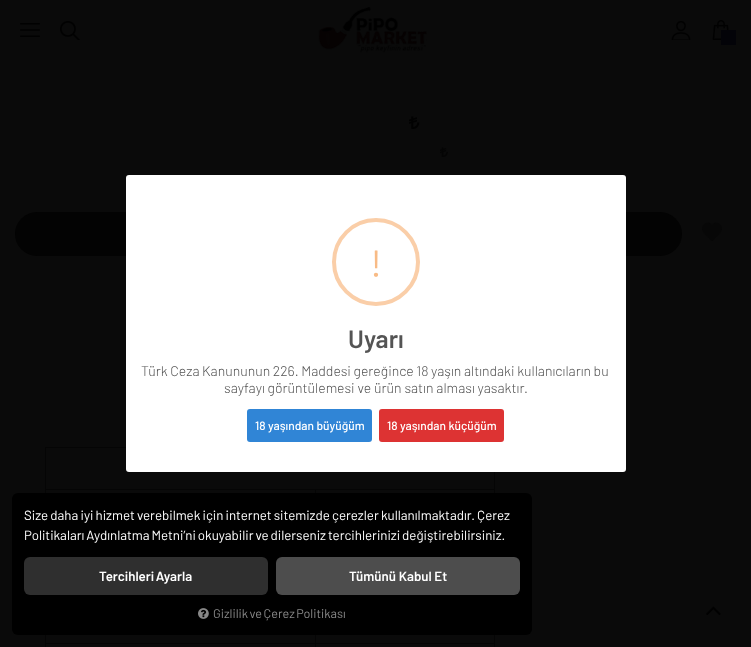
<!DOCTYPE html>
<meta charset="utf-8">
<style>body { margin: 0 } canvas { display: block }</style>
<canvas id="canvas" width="751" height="647"></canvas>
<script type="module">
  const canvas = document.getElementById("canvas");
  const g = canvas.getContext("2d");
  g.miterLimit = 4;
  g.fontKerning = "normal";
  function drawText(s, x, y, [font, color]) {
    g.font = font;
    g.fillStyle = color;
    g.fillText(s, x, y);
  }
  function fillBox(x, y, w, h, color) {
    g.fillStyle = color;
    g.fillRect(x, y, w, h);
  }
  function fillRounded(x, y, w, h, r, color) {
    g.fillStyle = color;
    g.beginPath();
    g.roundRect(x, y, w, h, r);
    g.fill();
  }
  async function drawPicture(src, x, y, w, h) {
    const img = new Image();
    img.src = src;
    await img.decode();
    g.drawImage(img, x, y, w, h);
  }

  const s1 = ["38px Barlow", "#F8BB86"];
  const s2 = ["600 25px Barlow", "#545454"];
  const s3 = ["300 14px Barlow", "#545454"];
  const s4 = ["500 12px Barlow", "#FFFFFF"];
  const s5 = ["13.3px Barlow", "#FFFFFF"];
  const s6 = ["600 13.3px Barlow", "#FFFFFF"];
  const s7 = ["12.6px Barlow", "#888888"];

  fillBox(0, 0, 751, 647, "#0A0A0A");
  await drawPicture("pic1.png", 318, 7, 109, 46);
  await drawPicture("pic2.png", 20, 23, 20, 14);
  await drawPicture("pic3.png", 60, 21, 20, 19);
  await drawPicture("pic4.png", 671, 21, 20, 19);
  await drawPicture("pic5.png", 712, 20, 17, 20);
  fillBox(721, 30, 15, 15, "#030308");
  await drawPicture("pic6.png", 409, 116, 11, 13);
  await drawPicture("pic7.png", 440, 147, 8, 10);
  fillRounded(15, 212, 667, 44, 22, "#030303");
  await drawPicture("pic8.png", 702, 222, 20, 20);
  fillBox(45, 447, 81, 1, "#050505");
  fillBox(494, 472, 1, 175, "#050505");
  fillBox(45, 447, 1, 200, "#050505");
  fillBox(315, 489, 180, 1, "#050505");
  fillBox(315, 489, 1, 4, "#050505");
  fillBox(45, 489, 271, 1, "#050505");
  fillBox(315, 643, 180, 1, "#050505");
  fillBox(315, 643, 1, 4, "#050505");
  fillBox(45, 643, 271, 1, "#050505");
  fillBox(315, 635, 1, 9, "#050505");
  await drawPicture("pic9.png", 706, 606, 15, 9);
  fillRounded(126, 175, 500, 297, 3, "#FFFFFF");
  g.beginPath();
  g.arc(376, 262, 42, 0, Math.PI * 2);
  g.strokeStyle = "#FACEA8";
  g.lineWidth = 4;
  g.stroke();
  drawText("!", 370, 277, s1);
  drawText("Uyarı", 348, 348, s2);
  g.wordSpacing = "-0.25px";
  drawText("Türk Ceza Kanununun 226. Maddesi gereğince 18 yaşın altındaki kullanıcıların bu", 141, 376, s3);
  g.wordSpacing = "0px";
  drawText("sayfayı görüntülemesi ve ürün satın alması yasaktır.", 224, 393, s3);
  fillRounded(247, 409, 125, 33, 3, "#3085D6");
  drawText("18 yaşından büyüğüm", 255, 430, s4);
  fillRounded(379, 409, 125, 33, 3, "#DD3333");
  drawText("18 yaşından küçüğüm", 387, 430, s4);
  fillRounded(12, 493, 520, 142, 6, "#000000");
  g.wordSpacing = "-0.5px";
  drawText("Size daha iyi hizmet verebilmek için internet sitemizde çerezler kullanılmaktadır. Çerez", 24, 520, s5);
  g.wordSpacing = "-0.75px";
  drawText("Politikaları Aydınlatma Metni’ni okuyabilir ve dilerseniz tercihlerinizi değiştirebilirsiniz.", 24, 540, s5);
  fillRounded(24, 557, 244, 38, 6, "#2F2F2F");
  g.wordSpacing = "-1px";
  drawText("Tercihleri Ayarla", 99, 581, s6);
  fillRounded(276, 557, 244, 38, 6, "#4D4D4D");
  g.wordSpacing = "0px";
  drawText("Tümünü Kabul Et", 349, 581, s6);
  await drawPicture("pic10.png", 198, 608, 11, 11);
  g.wordSpacing = "-1px";
  drawText("Gizlilik ve Çerez Politikası", 213, 618, s7);
</script>
